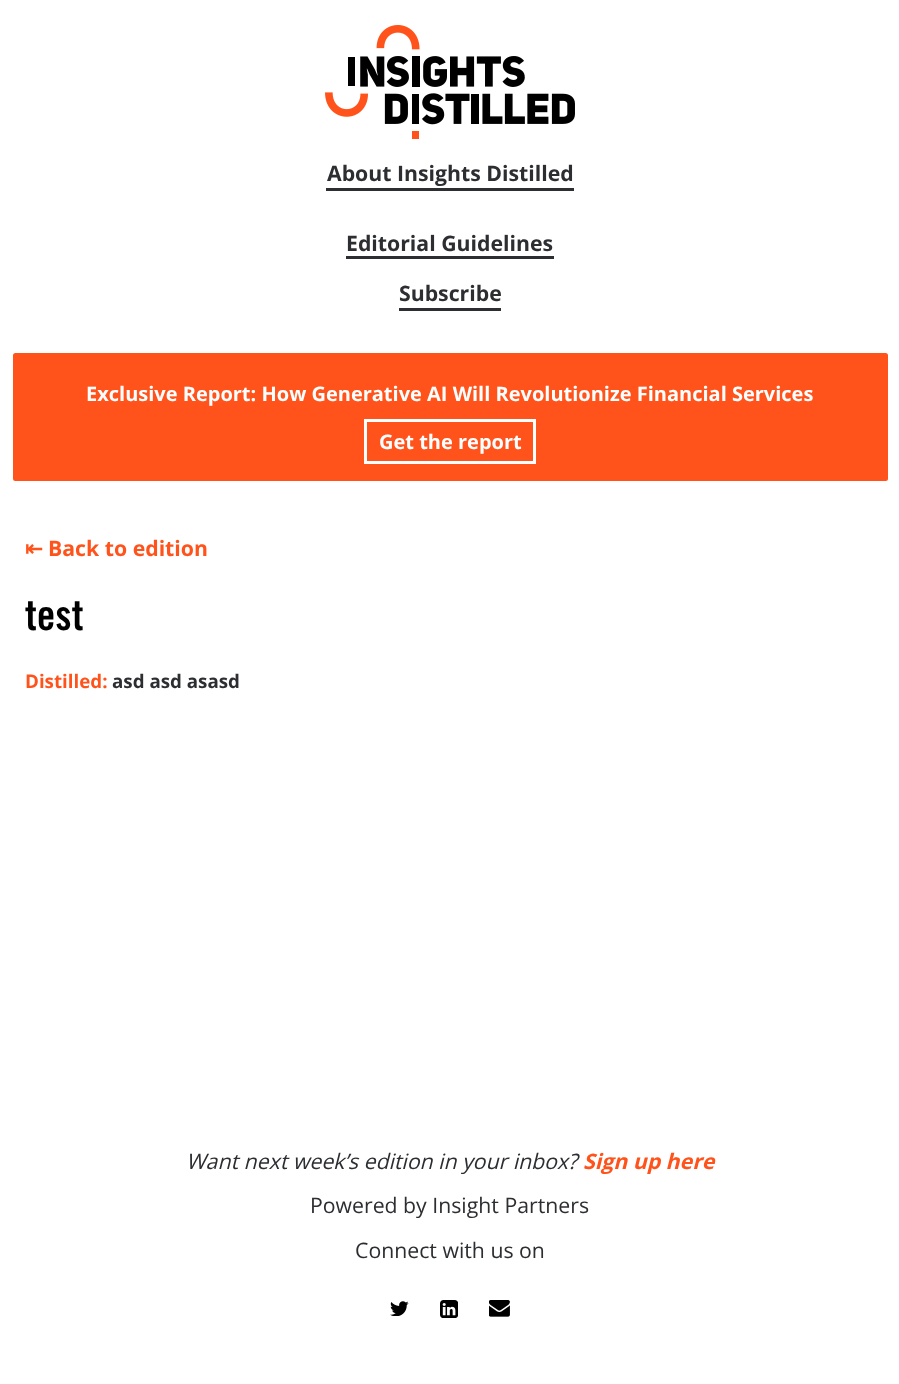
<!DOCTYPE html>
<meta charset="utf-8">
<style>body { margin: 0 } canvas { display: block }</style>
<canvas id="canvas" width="899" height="1384"></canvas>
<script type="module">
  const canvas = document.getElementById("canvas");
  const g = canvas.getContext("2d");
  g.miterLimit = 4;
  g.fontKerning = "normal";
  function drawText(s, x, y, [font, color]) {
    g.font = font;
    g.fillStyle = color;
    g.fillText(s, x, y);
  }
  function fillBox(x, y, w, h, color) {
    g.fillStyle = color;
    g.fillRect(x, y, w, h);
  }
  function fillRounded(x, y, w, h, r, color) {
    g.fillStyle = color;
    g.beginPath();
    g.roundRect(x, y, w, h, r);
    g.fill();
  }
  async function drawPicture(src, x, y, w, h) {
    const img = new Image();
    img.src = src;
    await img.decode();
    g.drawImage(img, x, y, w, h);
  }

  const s1 = ["bold 21.25px Open Sans", "#2C2E31"];
  const s2 = ["bold 20px Open Sans", "#FFFFFF"];
  const s3 = ["bold 21.25px DejaVu Sans", "#FF531B"];
  const s4 = ["bold 21.25px Open Sans", "#FF531B"];
  const s5 = ["bold 42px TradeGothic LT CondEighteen", "#000000"];
  const s6 = ["bold 18.75px Open Sans", "#FF531B"];
  const s7 = ["bold 18.75px Open Sans", "#2C2E31"];
  const s8 = ["italic 21.25px Open Sans", "#2C2E31"];
  const s9 = ["italic bold 21.25px Open Sans", "#FF531B"];
  const s10 = ["21.25px Open Sans", "#2C2E31"];

  fillBox(0, 0, 899, 1384, "#FFFFFF");
  await drawPicture("pic1.png", 325, 25, 250, 114);
  drawText("About Insights Distilled", 327, 181, s1);
  fillBox(326, 188, 248, 3, "#2C2E31");
  drawText("Editorial Guidelines", 346, 251, s1);
  fillBox(346, 256, 208, 3, "#2C2E31");
  drawText("Subscribe", 399, 301, s1);
  fillBox(399, 308, 102, 3, "#2C2E31");
  fillRounded(13, 353, 875, 128, 2.5, "#FF531B");
  drawText("Exclusive Report: How Generative AI Will Revolutionize Financial Services", 86, 401, s2);
  g.strokeStyle = "#FFFFFF";
  g.lineWidth = 3;
  g.strokeRect(365.5, 420.5, 169, 42);
  drawText("Get the report", 379, 449, s2);
  drawText("⇤", 25, 556, s3);
  drawText("Back to edition", 48, 556, s4);
  drawText("test", 25, 630, s5);
  drawText("Distilled:", 25, 688, s6);
  drawText("asd asd asasd", 112, 688, s7);
  drawText("Want next week’s edition in your inbox?", 186, 1169, s8);
  drawText("Sign up here", 583, 1169, s9);
  drawText("Powered by Insight Partners", 310, 1213, s10);
  drawText("Connect with us on", 355, 1258, s10);
  await drawPicture("pic2.png", 390, 1301, 19, 15);
  await drawPicture("pic3.png", 440, 1300, 18, 18);
  await drawPicture("pic4.png", 489, 1300, 21, 17);
</script>
